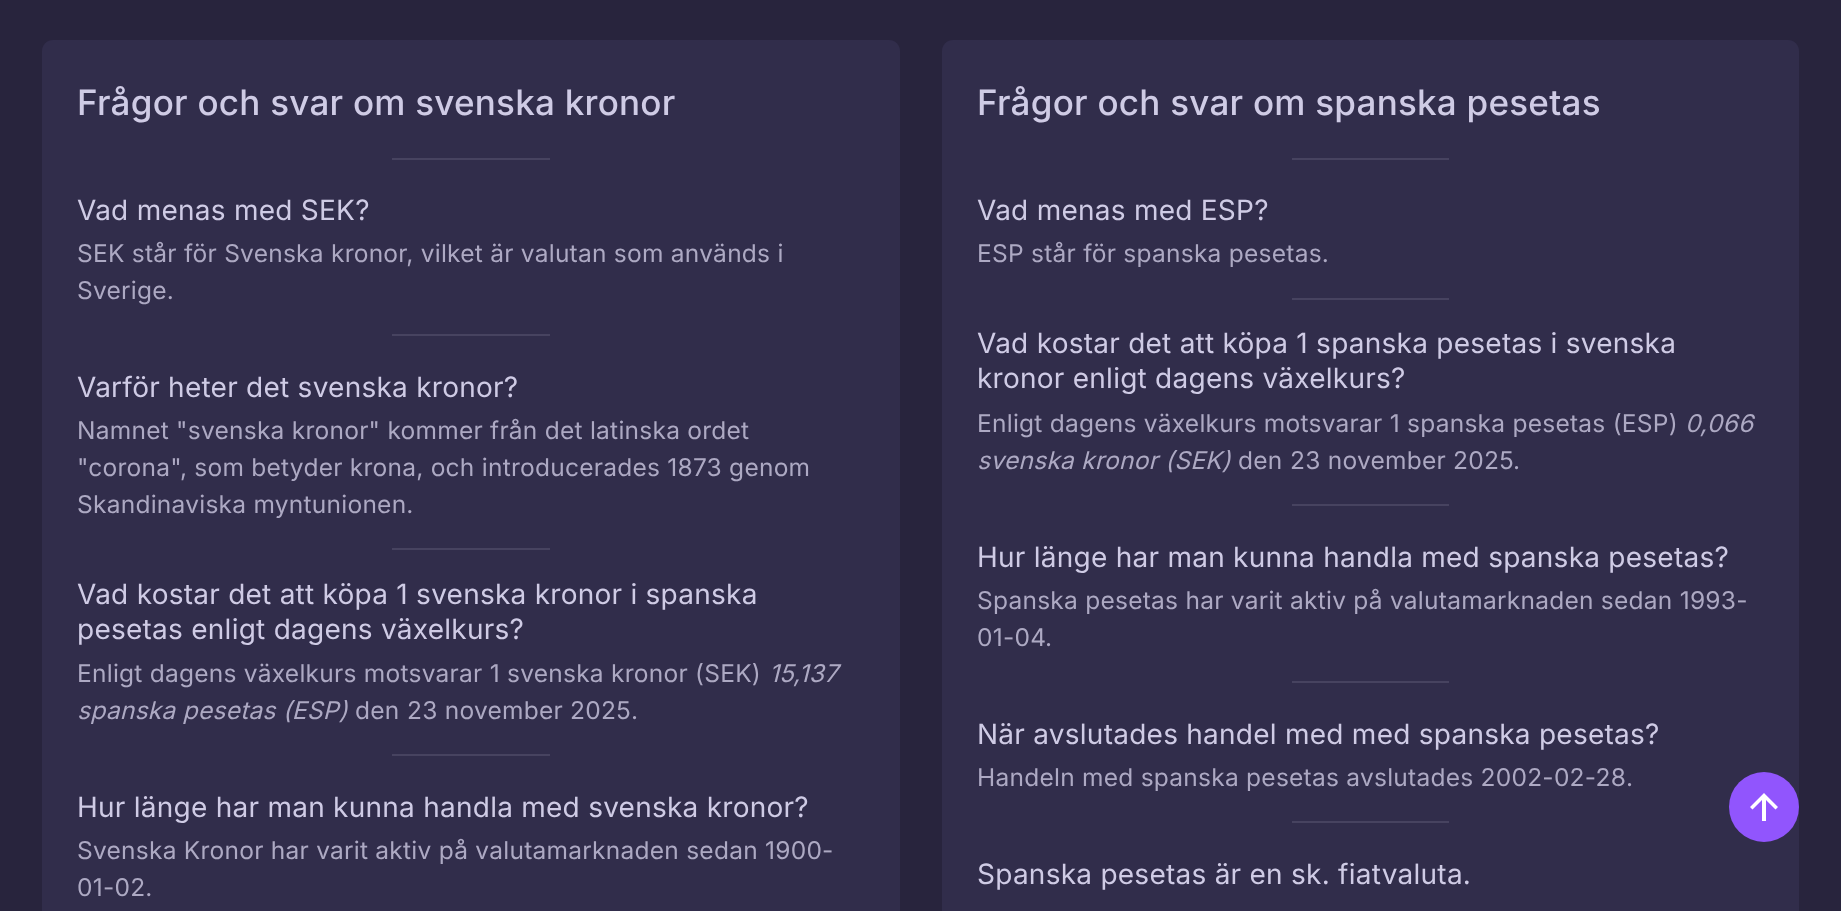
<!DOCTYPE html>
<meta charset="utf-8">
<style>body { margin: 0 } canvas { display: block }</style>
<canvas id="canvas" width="1841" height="911"></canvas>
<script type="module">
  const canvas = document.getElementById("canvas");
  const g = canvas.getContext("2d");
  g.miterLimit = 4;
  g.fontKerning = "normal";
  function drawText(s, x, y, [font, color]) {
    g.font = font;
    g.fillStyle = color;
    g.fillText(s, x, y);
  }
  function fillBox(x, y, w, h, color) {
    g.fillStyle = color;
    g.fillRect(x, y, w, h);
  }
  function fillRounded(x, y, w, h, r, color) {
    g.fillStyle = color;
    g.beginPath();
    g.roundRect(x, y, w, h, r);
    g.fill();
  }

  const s1 = ["500 35px Inter", "#CFCBE5"];
  const s2 = ["28px Inter", "#CFCBE5"];
  const s3 = ["24.5px Inter", "#ADA9C3"];
  const s4 = ["italic 24.5px Inter", "#ADA9C3"];

  fillBox(0, 0, 1841, 911, "#28243D");
  fillRounded(42, 40, 858, 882, 11, "#312D4B");
  g.letterSpacing = "0.25px";
  drawText("Frågor och svar om svenska kronor", 77, 115, s1);
  fillBox(392, 158, 158, 2, "#474360");
  drawText("Vad menas med SEK?", 77, 220, s2);
  drawText("SEK står för Svenska kronor, vilket är valutan som används i", 77, 262, s3);
  drawText("Sverige.", 77, 299, s3);
  fillBox(392, 334, 158, 2, "#474360");
  drawText("Varför heter det svenska kronor?", 77, 397, s2);
  drawText("Namnet \"svenska kronor\" kommer från det latinska ordet", 77, 439, s3);
  drawText("\"corona\", som betyder krona, och introducerades 1873 genom", 77, 476, s3);
  drawText("Skandinaviska myntunionen.", 77, 513, s3);
  fillBox(392, 548, 158, 2, "#474360");
  drawText("Vad kostar det att köpa 1 svenska kronor i spanska", 77, 604, s2);
  drawText("pesetas enligt dagens växelkurs?", 77, 639, s2);
  drawText("Enligt dagens växelkurs motsvarar 1 svenska kronor (SEK)", 77, 682, s3);
  drawText("15,137", 769, 682, s4);
  drawText("spanska pesetas (ESP)", 77, 719, s4);
  drawText("den", 355, 719, s3);
  drawText("23 november 2025", 407, 719, s3);
  drawText(".", 631, 719, s3);
  fillBox(392, 754, 158, 2, "#474360");
  drawText("Hur länge har man kunna handla med svenska kronor?", 77, 817, s2);
  drawText("Svenska Kronor har varit aktiv på valutamarknaden sedan 1900-", 77, 859, s3);
  drawText("01-02.", 77, 896, s3);
  fillRounded(942, 40, 857, 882, 11, "#312D4B");
  drawText("Frågor och svar om spanska pesetas", 977, 115, s1);
  fillBox(1292, 158, 157, 2, "#474360");
  drawText("Vad menas med ESP?", 977, 220, s2);
  drawText("ESP står för spanska pesetas.", 977, 262, s3);
  fillBox(1292, 298, 157, 2, "#474360");
  drawText("Vad kostar det att köpa 1 spanska pesetas i svenska", 977, 353, s2);
  drawText("kronor enligt dagens växelkurs?", 977, 388, s2);
  drawText("Enligt dagens växelkurs motsvarar 1 spanska pesetas (ESP)", 977, 432, s3);
  drawText("0,066", 1685, 432, s4);
  drawText("svenska kronor (SEK)", 977, 469, s4);
  drawText("den", 1238, 469, s3);
  drawText("23 november 2025", 1290, 469, s3);
  drawText(".", 1513, 469, s3);
  fillBox(1292, 504, 157, 2, "#474360");
  drawText("Hur länge har man kunna handla med spanska pesetas?", 977, 567, s2);
  drawText("Spanska pesetas har varit aktiv på valutamarknaden sedan 1993-", 977, 609, s3);
  drawText("01-04", 977, 646, s3);
  drawText(".", 1045, 646, s3);
  fillBox(1292, 681, 157, 2, "#474360");
  drawText("När avslutades handel med med spanska pesetas?", 977, 744, s2);
  drawText("Handeln med spanska pesetas avslutades 2002-02-28", 977, 786, s3);
  drawText(".", 1626, 786, s3);
  fillBox(1292, 821, 157, 2, "#474360");
  drawText("Spanska pesetas är en sk. fiatvaluta.", 977, 884, s2);
  g.fillStyle = "#9155FD";
  g.beginPath();
  g.arc(1764, 807, 35, 0, Math.PI * 2);
  g.fill();
  g.fillStyle = "#FFFFFF";
  g.beginPath();
  g.moveTo(1766, 821);
  g.lineTo(1762, 821);
  g.lineTo(1762, 800);
  g.lineTo(1752.5, 809.5);
  g.lineTo(1750, 807);
  g.lineTo(1764, 793);
  g.lineTo(1778, 807);
  g.lineTo(1775.5, 809.5);
  g.lineTo(1766, 800);
  g.closePath();
  g.fill();
</script>
